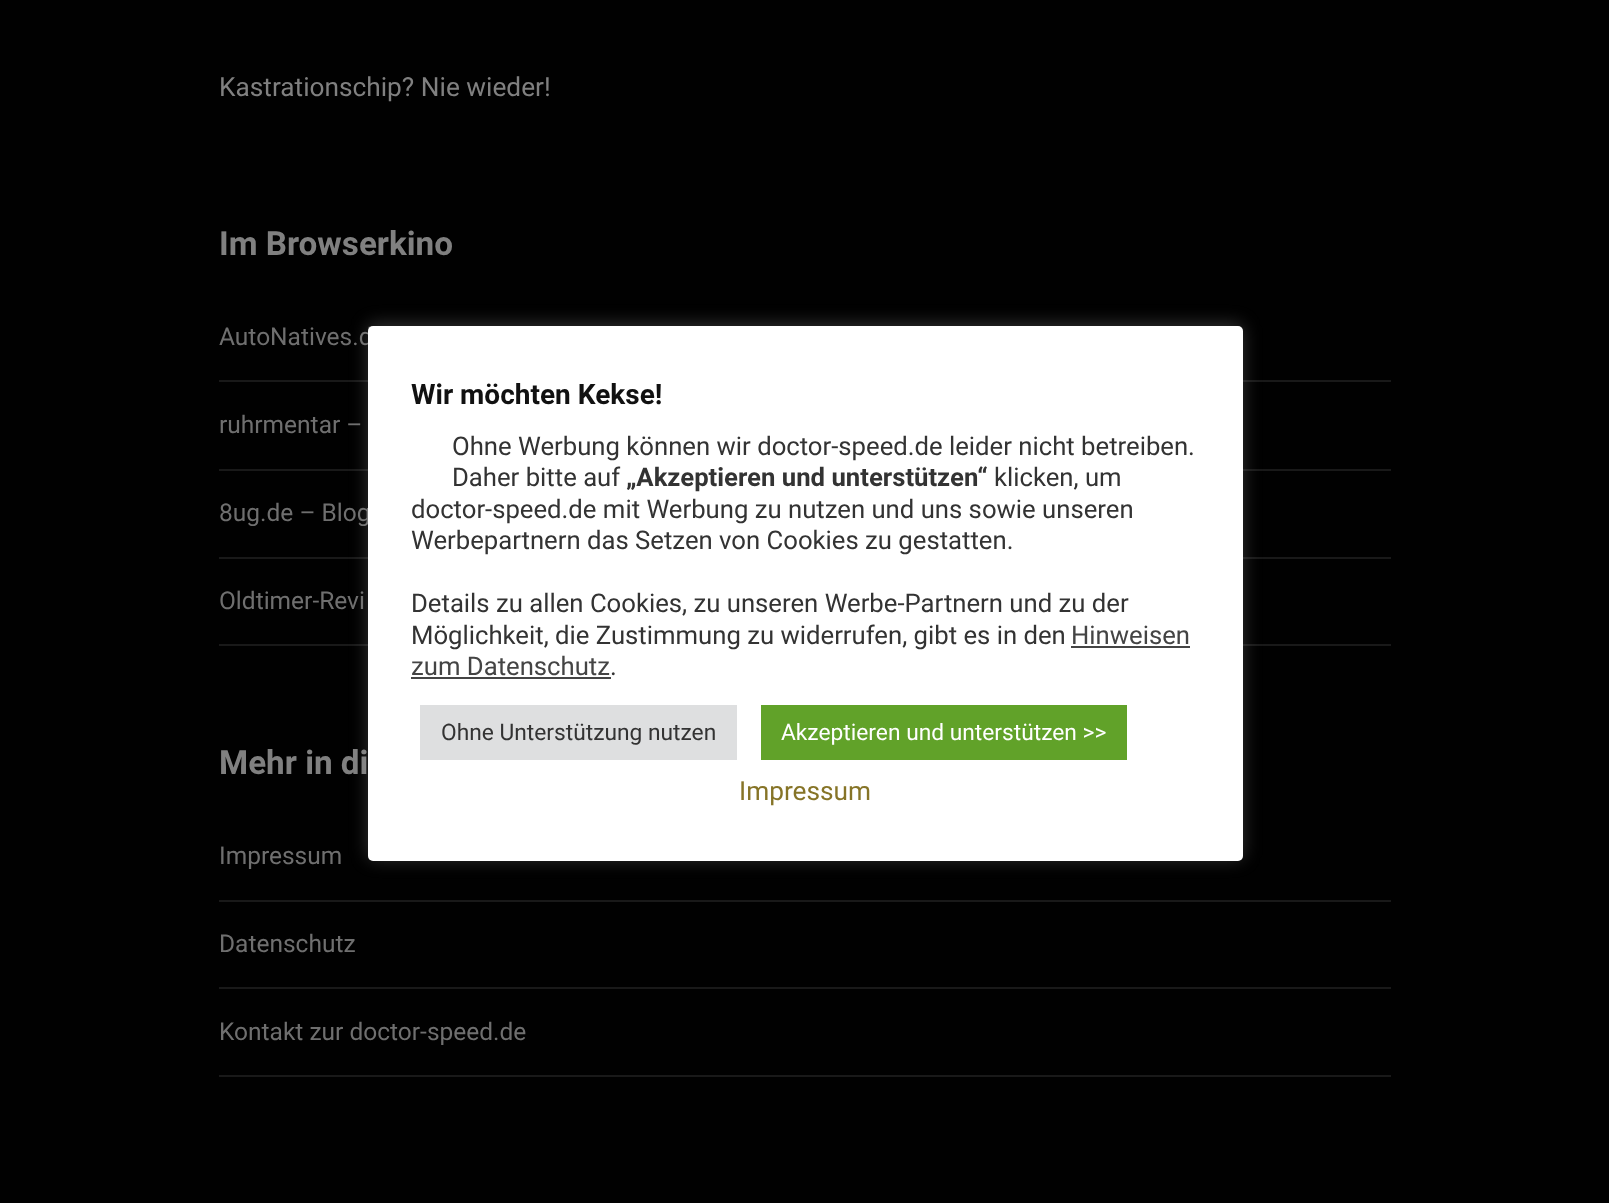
<!DOCTYPE html>
<meta charset="utf-8">
<style>body { margin: 0 } canvas { display: block }</style>
<canvas id="canvas" width="1609" height="1203"></canvas>
<script type="module">
  const canvas = document.getElementById("canvas");
  const g = canvas.getContext("2d");
  g.miterLimit = 4;
  g.fontKerning = "normal";
  function drawText(s, x, y, [font, color]) {
    g.font = font;
    g.fillStyle = color;
    g.fillText(s, x, y);
  }
  function fillBox(x, y, w, h, color) {
    g.fillStyle = color;
    g.fillRect(x, y, w, h);
  }
  function fillRounded(x, y, w, h, r, color) {
    g.fillStyle = color;
    g.beginPath();
    g.roundRect(x, y, w, h, r);
    g.fill();
  }

  const s1 = ["26.25px Roboto", "#808080"];
  const s2 = ["bold 33.25px Roboto", "#808080"];
  const s3 = ["24.5px Roboto", "#6F6F6F"];
  const s4 = ["bold 28px Roboto", "#111111"];
  const s5 = ["25.7px Roboto", "#333333"];
  const s6 = ["bold 25.7px Roboto", "#333333"];
  const s7 = ["25.7px Roboto", "#444444"];
  const s8 = ["22.75px Roboto", "#333333"];
  const s9 = ["22.75px Roboto", "#FFFFFF"];
  const s10 = ["26.25px Roboto", "#867427"];

  fillBox(0, 0, 1609, 1203, "#010101");
  drawText("Kastrationschip? Nie wieder!", 219, 96, s1);
  drawText("Im Browserkino", 219, 255, s2);
  fillBox(219, 380, 1172, 2, "#191919");
  drawText("AutoNatives.d", 219, 345, s3);
  fillBox(219, 469, 1172, 2, "#191919");
  drawText("ruhrmentar –", 219, 433, s3);
  fillBox(219, 557, 1172, 2, "#191919");
  drawText("8ug.de – Blog", 219, 521, s3);
  fillBox(219, 644, 1172, 2, "#191919");
  drawText("Oldtimer-Revi", 219, 609, s3);
  drawText("Mehr in di", 219, 774, s2);
  fillBox(219, 900, 1172, 2, "#191919");
  drawText("Impressum", 219, 864, s3);
  fillBox(219, 987, 1172, 2, "#191919");
  drawText("Datenschutz", 219, 952, s3);
  fillBox(219, 1075, 1172, 2, "#191919");
  drawText("Kontakt zur doctor-speed.de", 219, 1040, s3);
  g.fillStyle = "rgba(172, 171, 171, 0.3)";
  g.filter = "blur(9px)";
  g.beginPath();
  g.roundRect(368, 324, 875, 535, 5);
  g.fill();
  g.filter = "none";
  fillRounded(368, 326, 875, 535, 5, "#FFFFFF");
  drawText("Wir möchten Kekse!", 411, 404, s4);
  drawText("Ohne Werbung können wir doctor-speed.de leider nicht betreiben.", 452, 455, s5);
  drawText("Daher bitte auf", 452, 486, s5);
  drawText("„Akzeptieren und unterstützen“", 626, 486, s6);
  drawText("klicken, um", 994, 486, s5);
  drawText("doctor-speed.de mit Werbung zu nutzen und uns sowie unseren", 411, 518, s5);
  drawText("Werbepartnern das Setzen von Cookies zu gestatten.", 411, 549, s5);
  drawText("Details zu allen Cookies, zu unseren Werbe-Partnern und zu der", 411, 612, s5);
  drawText("Möglichkeit, die Zustimmung zu widerrufen, gibt es in den", 411, 644, s5);
  drawText("Hinweisen", 1071, 644, s7);
  fillBox(1071, 646, 119, 2, "#444444");
  drawText("zum Datenschutz", 411, 675, s7);
  fillBox(411, 677, 200, 2, "#444444");
  drawText(".", 610, 675, s5);
  fillBox(420, 705, 317, 55, "#DEDFE0");
  drawText("Ohne Unterstützung nutzen", 441, 740, s8);
  fillBox(761, 705, 366, 55, "#61A229");
  drawText("Akzeptieren und unterstützen >>", 781, 740, s9);
  drawText("Impressum", 739, 800, s10);
</script>
